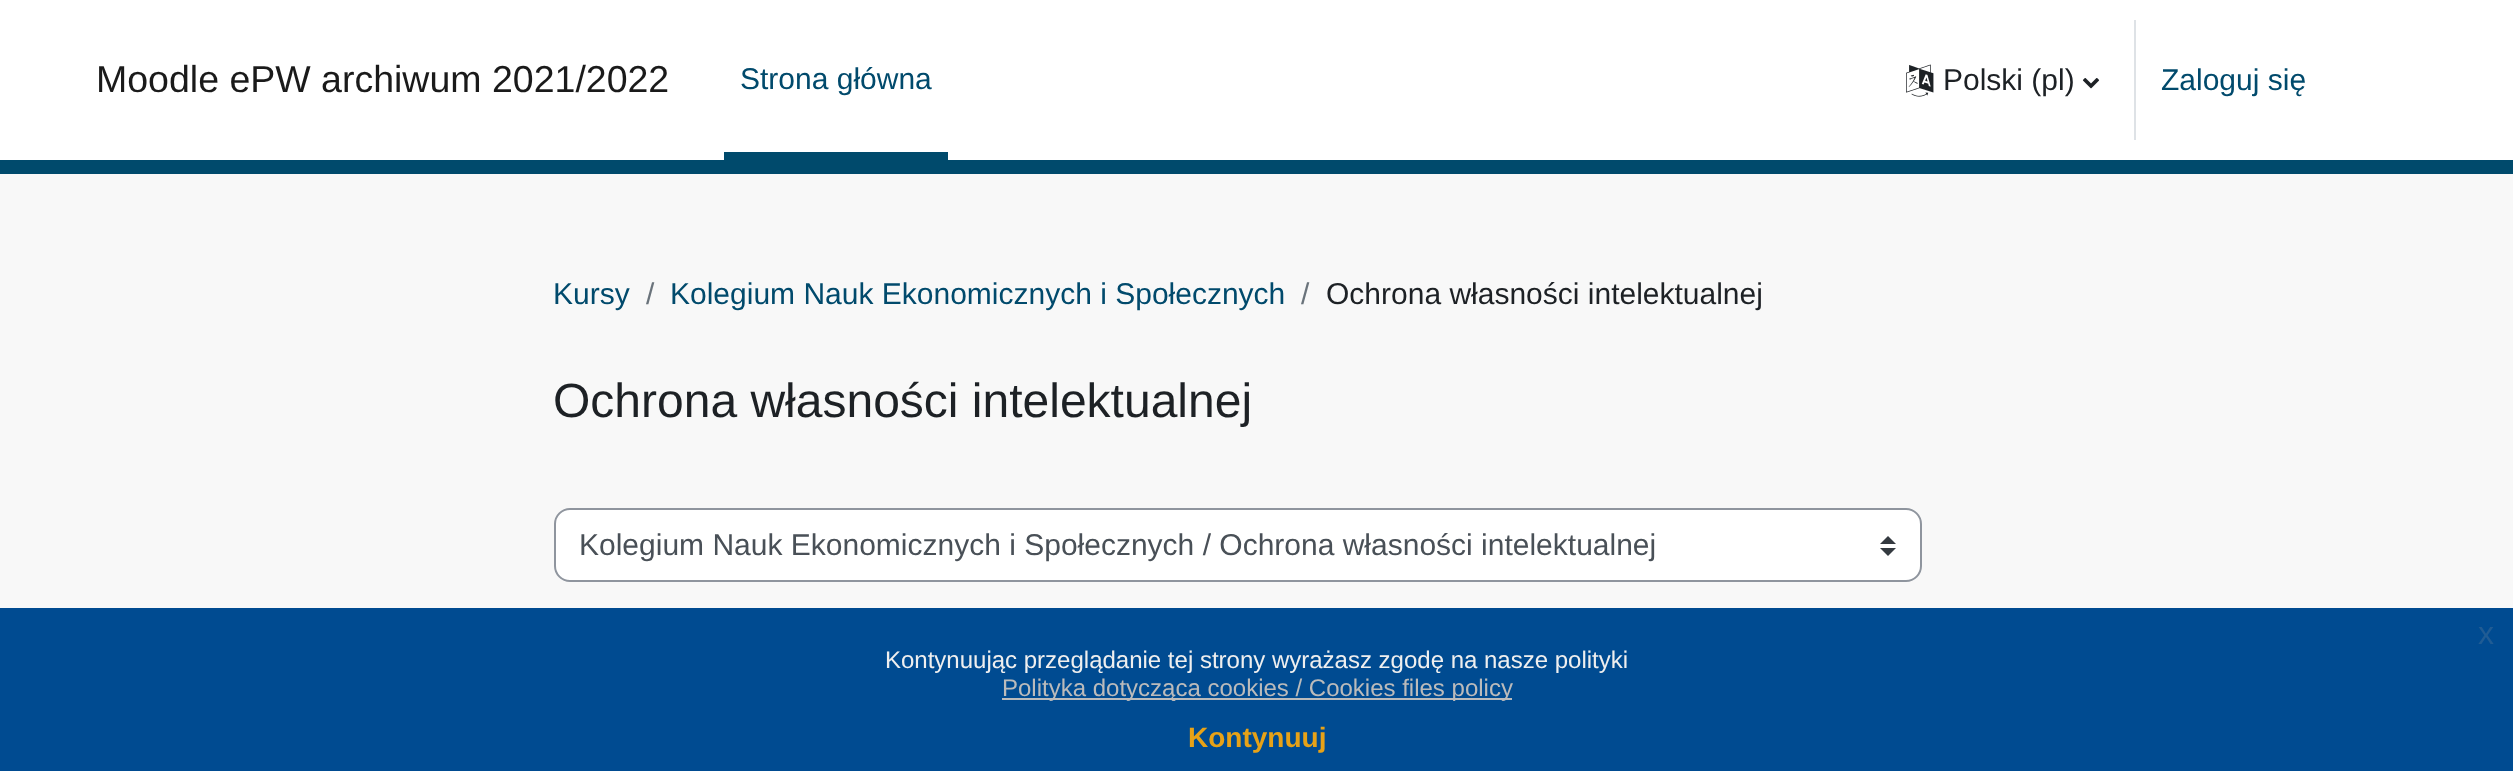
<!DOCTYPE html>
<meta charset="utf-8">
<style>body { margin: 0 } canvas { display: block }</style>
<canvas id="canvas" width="2513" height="771"></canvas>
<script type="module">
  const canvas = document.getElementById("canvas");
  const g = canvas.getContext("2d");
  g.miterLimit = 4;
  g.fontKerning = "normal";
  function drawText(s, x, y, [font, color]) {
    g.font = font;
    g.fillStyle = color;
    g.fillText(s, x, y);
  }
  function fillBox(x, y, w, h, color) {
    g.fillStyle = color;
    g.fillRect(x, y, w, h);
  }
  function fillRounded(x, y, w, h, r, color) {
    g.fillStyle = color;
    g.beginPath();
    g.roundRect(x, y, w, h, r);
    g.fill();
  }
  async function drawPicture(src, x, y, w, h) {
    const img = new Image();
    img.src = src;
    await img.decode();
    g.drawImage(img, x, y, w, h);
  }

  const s1 = ["37.5px Liberation Sans", "#1A1A1A"];
  const s2 = ["30px Liberation Sans", "#014A6C"];
  const s3 = ["30px Liberation Sans", "#1D2125"];
  const s4 = ["30px Liberation Sans", "#6A737B"];
  const s5 = ["48px Liberation Sans", "#1D2125"];
  const s6 = ["30px Liberation Sans", "#495057"];
  const s7 = ["32px Liberation Sans", "#205C94"];
  const s8 = ["24px Liberation Sans", "#EFEFEF"];
  const s9 = ["24px Liberation Sans", "#BBBBBB"];
  const s10 = ["bold 28px Liberation Sans", "#E7A217"];

  fillBox(0, 0, 2513, 771, "#F8F8F8");
  fillBox(0, 0, 2513, 160, "#FFFFFF");
  fillBox(0, 160, 2513, 14, "#004A6C");
  drawText("Moodle ePW archiwum 2021/2022", 96, 92, s1);
  fillBox(724, 152, 224, 8, "#004A6C");
  drawText("Strona główna", 740, 89, s2);
  await drawPicture("pic1.png", 1906, 64, 28, 33);
  drawText("Polski (pl)", 1943, 90, s3);
  await drawPicture("pic2.png", 2082, 78, 18, 11);
  fillBox(2134, 20, 2, 120, "#DEE2E6");
  drawText("Zaloguj się", 2161, 90, s2);
  drawText("Kursy", 553, 304, s2);
  drawText("/", 646, 304, s4);
  drawText("Kolegium Nauk Ekonomicznych i Społecznych", 670, 304, s2);
  drawText("/", 1301, 304, s4);
  drawText("Ochrona własności intelektualnej", 1326, 304, s3);
  drawText("Ochrona własności intelektualnej", 553, 417, s5);
  fillRounded(554, 508, 1368, 74, 16, "#FFFFFF");
  g.fillStyle = "#343A40";
  g.beginPath();
  g.moveTo(1888, 536);
  g.lineTo(1880, 544);
  g.lineTo(1896, 544);
  g.closePath();
  g.moveTo(1888, 556);
  g.lineTo(1880, 548);
  g.lineTo(1896, 548);
  g.closePath();
  g.fill();
  g.beginPath();
  g.roundRect(555, 509, 1366, 72, 15);
  g.strokeStyle = "#8F959E";
  g.lineWidth = 2;
  g.stroke();
  drawText("Kolegium Nauk Ekonomicznych i Społecznych / Ochrona własności intelektualnej", 579, 555, s6);
  fillBox(0, 608, 2513, 163, "#004B91");
  drawText("x", 2478, 644, s7);
  drawText("Kontynuując przeglądanie tej strony wyrażasz zgodę na nasze polityki", 885, 668, s8);
  fillBox(1002, 698, 510, 2, "#BBBBBB");
  drawText("Polityka dotycząca cookies / Cookies files policy", 1002, 696, s9);
  drawText("Kontynuuj", 1188, 747, s10);
</script>
